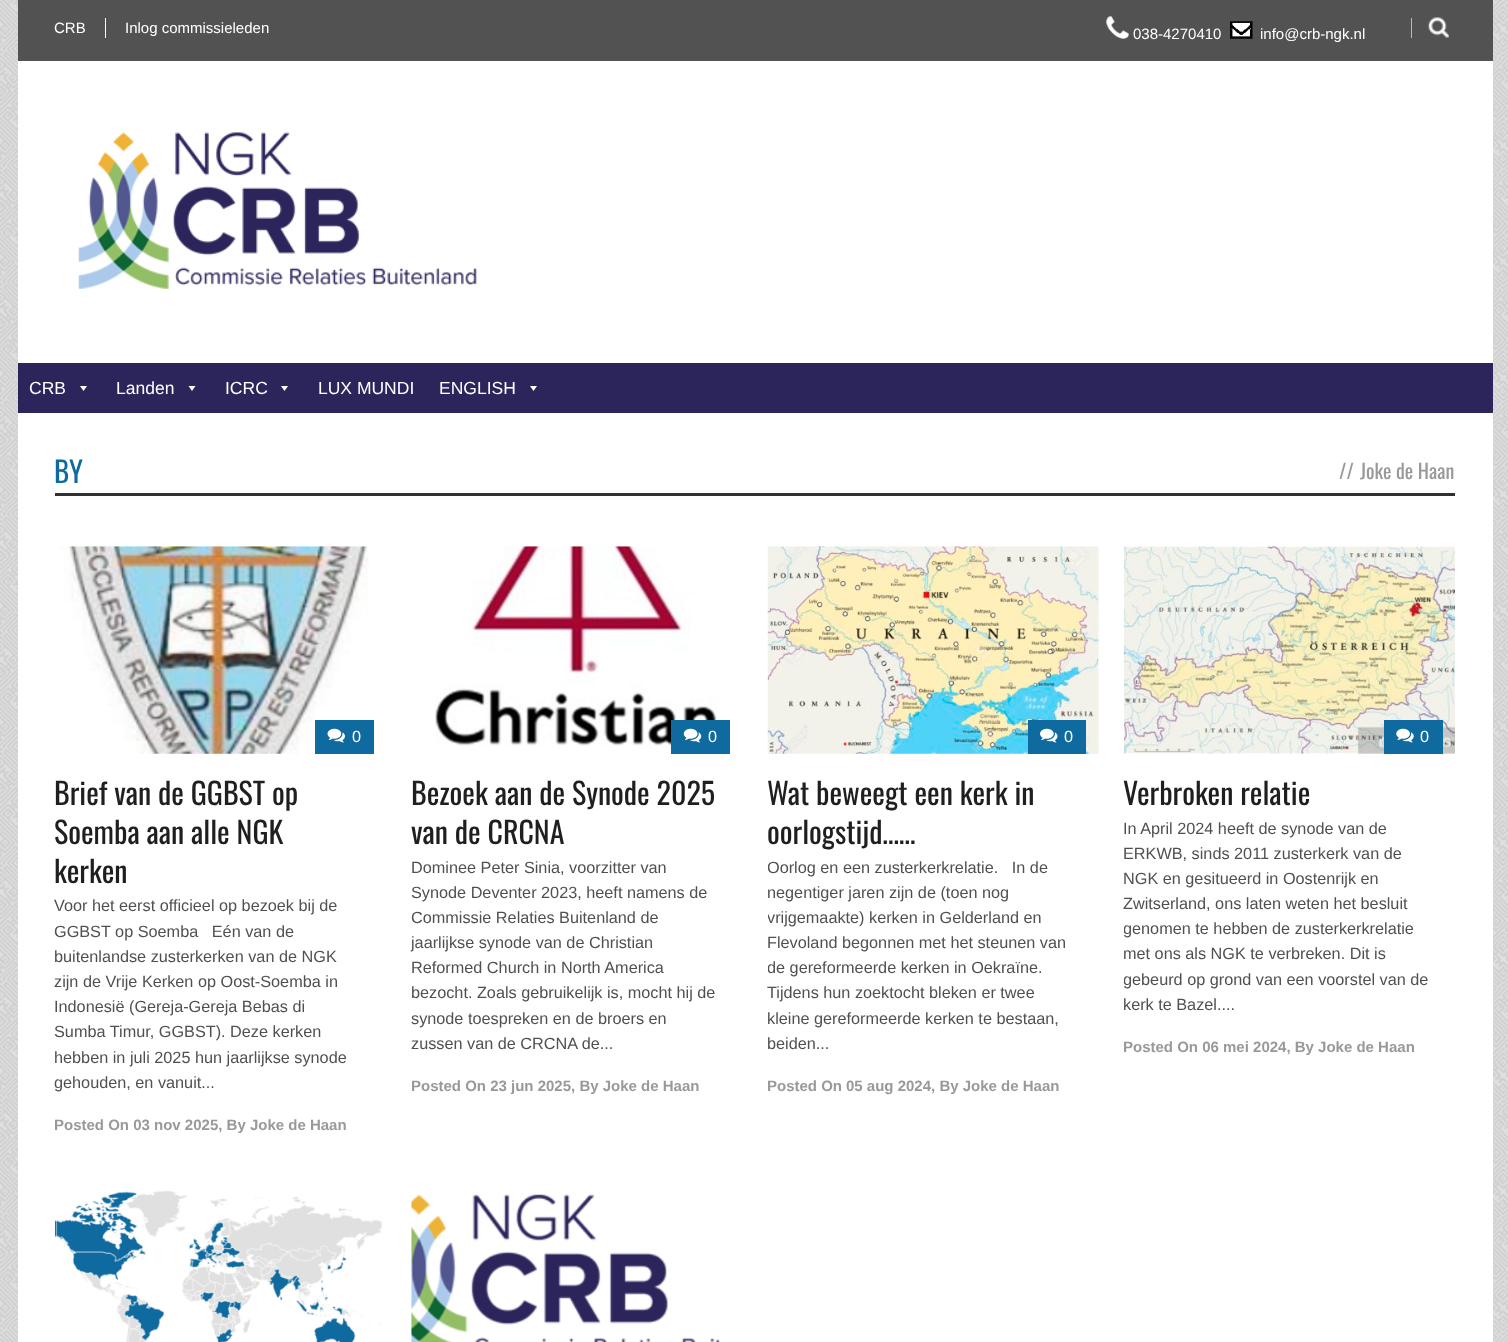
<!DOCTYPE html>
<meta charset="utf-8">
<style>body { margin: 0 } canvas { display: block }</style>
<canvas id="canvas" width="1508" height="1342"></canvas>
<script type="module">
  const canvas = document.getElementById("canvas");
  const g = canvas.getContext("2d");
  g.miterLimit = 4;
  g.fontKerning = "normal";
  function drawText(s, x, y, [font, color]) {
    g.font = font;
    g.fillStyle = color;
    g.fillText(s, x, y);
  }
  function fillBox(x, y, w, h, color) {
    g.fillStyle = color;
    g.fillRect(x, y, w, h);
  }
  async function drawPicture(src, x, y, w, h) {
    const img = new Image();
    img.src = src;
    await img.decode();
    g.drawImage(img, x, y, w, h);
  }

  const s1 = ["15px Liberation Sans", "#FFFFFF"];
  const s2 = ["17.5px Liberation Sans", "#FFFFFF"];
  const s3 = ["29px Oswald", "#0F6A9F"];
  const s4 = ["20px Oswald", "#999999"];
  const s5 = ["16.25px Liberation Sans", "#FFFFFF"];
  const s6 = ["30px Oswald", "#1F1F1F"];
  const s7 = ["16.25px Liberation Sans", "#505050"];
  const s8 = ["bold 15px Liberation Sans", "#999999"];

  fillBox(0, 0, 1508, 1342, "#FFFFFF");
  await drawPicture("pic1.png", 0, 0, 1508, 1342);
  fillBox(18, 0, 1475, 61, "#525252");
  drawText("CRB", 54, 33, s1);
  fillBox(105, 18, 1, 20, "#FFFFFF");
  drawText("Inlog commissieleden", 125, 33, s1);
  await drawPicture("pic2.png", 1106, 16, 23, 23);
  drawText("038-4270410", 1133, 39, s1);
  await drawPicture("pic3.png", 1230, 21, 23, 18);
  drawText("info@crb-ngk.nl", 1260, 39, s1);
  await drawPicture("pic4.png", 1428, 17, 21, 21);
  fillBox(1411, 18, 1, 20, "#BABABA");
  fillBox(18, 61, 1475, 302, "#FFFFFF");
  await drawPicture("pic5.png", 78, 132, 399, 157);
  fillBox(18, 363, 1475, 50, "#2B255C");
  drawText("CRB", 29, 394, s2);
  g.beginPath();
  g.moveTo(87, 386);
  g.lineTo(83.5, 391);
  g.lineTo(80, 386);
  g.closePath();
  g.fill();
  drawText("Landen", 116, 394, s2);
  g.beginPath();
  g.moveTo(195.5, 386);
  g.lineTo(192, 391);
  g.lineTo(188.5, 386);
  g.closePath();
  g.fill();
  drawText("ICRC", 225, 394, s2);
  g.beginPath();
  g.moveTo(288, 386);
  g.lineTo(284.5, 391);
  g.lineTo(281, 386);
  g.closePath();
  g.fill();
  drawText("LUX MUNDI", 318, 394, s2);
  drawText("ENGLISH", 439, 394, s2);
  g.beginPath();
  g.moveTo(537, 386);
  g.lineTo(533.5, 391);
  g.lineTo(530, 386);
  g.closePath();
  g.fill();
  fillBox(18, 413, 1475, 929, "#FFFFFF");
  fillBox(55, 493, 1400, 3, "#313131");
  drawText("BY", 54, 483, s3);
  drawText("//", 1339, 479, s4);
  drawText("Joke de Haan", 1360, 479, s4);
  await drawPicture("pic6.png", 59, 546, 310, 208);
  fillBox(315, 720, 59, 34, "#0F6A9F");
  await drawPicture("pic7.png", 327, 728, 18, 15);
  drawText("0", 352, 742, s5);
  drawText("Brief van de GGBST op", 54, 805, s6);
  drawText("Soemba aan alle NGK", 54, 844, s6);
  drawText("kerken", 54, 883, s6);
  drawText("Voor het eerst officieel op bezoek bij de", 54, 911, s7);
  drawText("GGBST op Soemba   Eén van de", 54, 937, s7);
  drawText("buitenlandse zusterkerken van de NGK", 54, 962, s7);
  drawText("zijn de Vrije Kerken op Oost-Soemba in", 54, 987, s7);
  drawText("Indonesië (Gereja-Gereja Bebas di", 54, 1012, s7);
  drawText("Sumba Timur, GGBST). Deze kerken", 54, 1037, s7);
  drawText("hebben in juli 2025 hun jaarlijkse synode", 54, 1063, s7);
  drawText("gehouden, en vanuit...", 54, 1088, s7);
  drawText("Posted On 03 nov 2025, By Joke de Haan", 54, 1130, s8);
  await drawPicture("pic8.png", 435, 546, 282, 200);
  fillBox(671, 720, 59, 34, "#0F6A9F");
  await drawPicture("pic9.png", 683, 728, 19, 15);
  drawText("0", 708, 742, s5);
  drawText("Bezoek aan de Synode 2025", 411, 805, s6);
  drawText("van de CRCNA", 411, 844, s6);
  drawText("Dominee Peter Sinia, voorzitter van", 411, 873, s7);
  drawText("Synode Deventer 2023, heeft namens de", 411, 898, s7);
  drawText("Commissie Relaties Buitenland de", 411, 923, s7);
  drawText("jaarlijkse synode van de Christian", 411, 948, s7);
  drawText("Reformed Church in North America", 411, 973, s7);
  drawText("bezocht. Zoals gebruikelijk is, mocht hij de", 411, 998, s7);
  drawText("synode toespreken en de broers en", 411, 1024, s7);
  drawText("zussen van de CRCNA de...", 411, 1049, s7);
  drawText("Posted On 23 jun 2025, By Joke de Haan", 411, 1091, s8);
  await drawPicture("pic10.png", 767, 546, 332, 208);
  fillBox(1028, 720, 58, 34, "#0F6A9F");
  await drawPicture("pic11.png", 1040, 728, 18, 15);
  drawText("0", 1064, 742, s5);
  drawText("Wat beweegt een kerk in", 767, 805, s6);
  drawText("oorlogstijd……", 767, 844, s6);
  g.save();
  g.beginPath();
  g.rect(768, 546, 331, 553);
  g.clip();
  drawText("Oorlog en een zusterkerkrelatie.   In de", 767, 873, s7);
  g.restore();
  drawText("negentiger jaren zijn de (toen nog", 767, 898, s7);
  g.save();
  g.beginPath();
  g.rect(768, 546, 331, 553);
  g.clip();
  drawText("vrijgemaakte) kerken in Gelderland en", 767, 923, s7);
  g.restore();
  drawText("Flevoland begonnen met het steunen van", 767, 948, s7);
  g.save();
  g.beginPath();
  g.rect(768, 546, 331, 553);
  g.clip();
  drawText("de gereformeerde kerken in Oekraïne.", 767, 973, s7);
  g.restore();
  drawText("Tijdens hun zoektocht bleken er twee", 767, 998, s7);
  drawText("kleine gereformeerde kerken te bestaan,", 767, 1024, s7);
  drawText("beiden...", 767, 1049, s7);
  g.save();
  g.beginPath();
  g.rect(768, 546, 331, 553);
  g.clip();
  drawText("Posted On", 767, 1091, s8);
  g.restore();
  drawText("05 aug 2024, By Joke de Haan", 846, 1091, s8);
  await drawPicture("pic12.png", 1123, 546, 332, 208);
  fillBox(1384, 720, 59, 34, "#0F6A9F");
  await drawPicture("pic13.png", 1396, 728, 18, 15);
  drawText("0", 1420, 742, s5);
  drawText("Verbroken relatie", 1123, 805, s6);
  drawText("In April 2024 heeft de synode van de", 1123, 834, s7);
  drawText("ERKWB, sinds 2011 zusterkerk van de", 1123, 859, s7);
  drawText("NGK en gesitueerd in Oostenrijk en", 1123, 884, s7);
  drawText("Zwitserland, ons laten weten het besluit", 1123, 909, s7);
  g.save();
  g.beginPath();
  g.rect(1124, 546, 331, 514);
  g.clip();
  drawText("genomen te hebben de zusterkerkrelatie", 1123, 934, s7);
  g.restore();
  drawText("met ons als NGK te verbreken. Dit is", 1123, 959, s7);
  g.save();
  g.beginPath();
  g.rect(1124, 546, 331, 514);
  g.clip();
  drawText("gebeurd op grond van een voorstel van de", 1123, 985, s7);
  g.restore();
  drawText("kerk te Bazel....", 1123, 1010, s7);
  drawText("Posted On 06 mei 2024, By Joke de Haan", 1123, 1052, s8);
  await drawPicture("pic14.png", 55, 1190, 327, 152);
  await drawPicture("pic15.png", 411, 1194, 309, 148);
</script>
